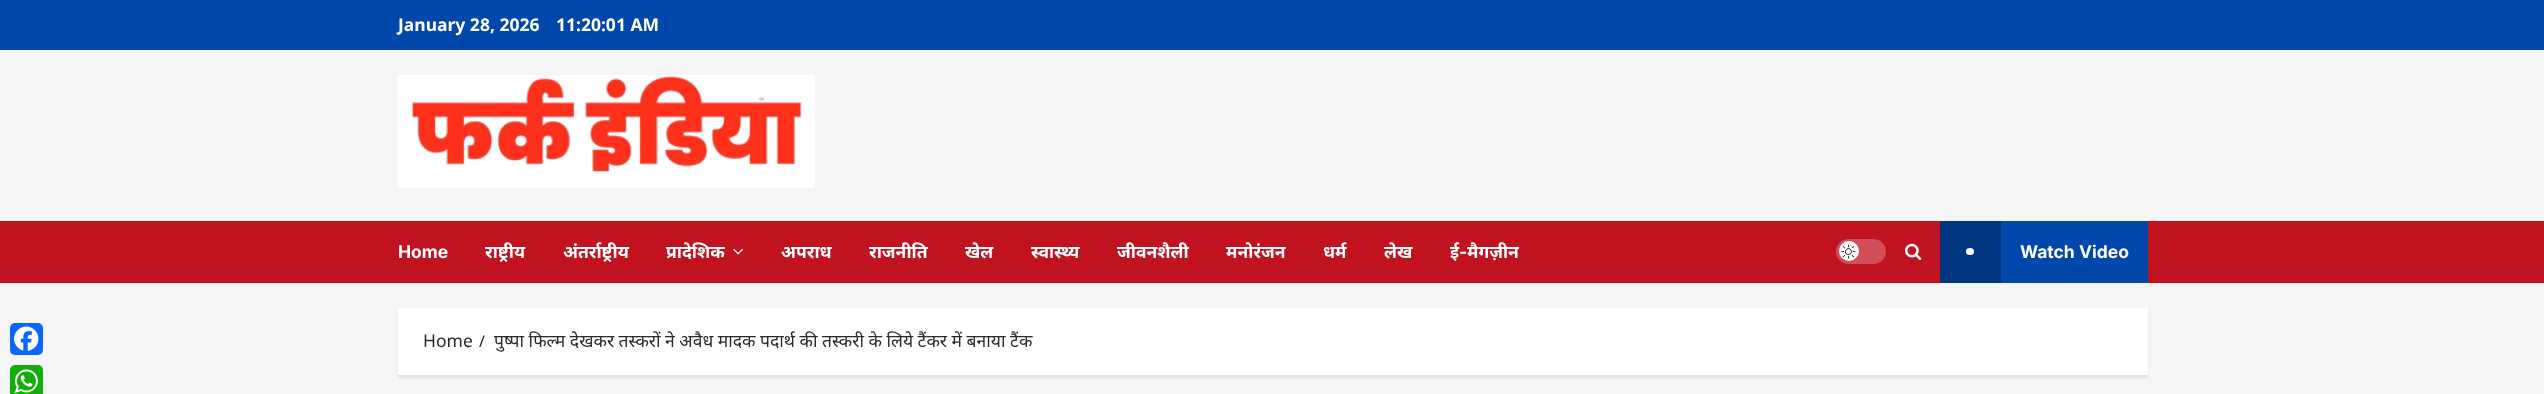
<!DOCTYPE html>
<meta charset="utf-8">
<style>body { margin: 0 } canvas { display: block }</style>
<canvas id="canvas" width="2544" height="394"></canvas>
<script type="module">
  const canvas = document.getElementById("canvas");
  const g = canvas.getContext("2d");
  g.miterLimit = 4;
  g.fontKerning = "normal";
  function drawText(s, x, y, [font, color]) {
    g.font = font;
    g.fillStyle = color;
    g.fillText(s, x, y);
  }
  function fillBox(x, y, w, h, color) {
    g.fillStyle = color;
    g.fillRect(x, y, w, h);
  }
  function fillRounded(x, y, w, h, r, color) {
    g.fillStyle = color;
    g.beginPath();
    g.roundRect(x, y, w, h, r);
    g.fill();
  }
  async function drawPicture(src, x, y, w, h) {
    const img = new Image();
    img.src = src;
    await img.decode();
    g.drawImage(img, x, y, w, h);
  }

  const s1 = ["bold 17.5px Noto Sans", "#FFFFFF"];
  const s2 = ["bold 17.5px Inter", "#FFFFFF"];
  const s3 = ["17.5px Noto Sans", "#2A2A2A"];
  const s4 = ["16px Noto Sans", "#1F1F1F"];

  fillBox(0, 0, 2544, 394, "#F5F5F5");
  fillBox(0, 0, 2544, 50, "#0047AB");
  drawText("January 28, 2026", 398, 31, s1);
  drawText("11:20:01 AM", 556, 31, s1);
  await drawPicture("pic1.png", 397, 75, 418, 113);
  fillBox(0, 221, 2544, 62, "#C1121F");
  drawText("Home", 398, 258, s2);
  drawText("राष्ट्रीय", 485, 258, s1);
  drawText("अंतर्राष्ट्रीय", 563, 258, s1);
  drawText("प्रादेशिक", 666, 258, s1);
  await drawPicture("pic2.png", 733, 248, 10, 7);
  drawText("अपराध", 781, 258, s1);
  drawText("राजनीति", 869, 258, s1);
  drawText("खेल", 965, 258, s1);
  drawText("स्वास्थ्य", 1031, 258, s1);
  drawText("जीवनशैली", 1117, 258, s1);
  drawText("मनोरंजन", 1226, 258, s1);
  drawText("धर्म", 1323, 258, s1);
  drawText("लेख", 1384, 258, s1);
  drawText("ई", 1450, 258, s1);
  drawText("-", 1459, 258, s2);
  drawText("मैगज़ीन", 1467, 258, s1);
  fillRounded(1836, 239, 50, 25, 12.5, "#D14D57");
  g.fillStyle = "#FFFFFF";
  g.beginPath();
  g.arc(1849, 251, 10, 0, Math.PI * 2);
  g.fill();
  await drawPicture("pic3.png", 1841, 244, 15, 15);
  await drawPicture("pic4.png", 1905, 243, 17, 17);
  fillBox(2001, 221, 147, 62, "#0047AB");
  fillBox(1940, 221, 61, 62, "#003580");
  fillRounded(1966, 248, 8, 7, 3.5, "#FFFFFF");
  drawText("Watch Video", 2020, 258, s2);
  g.fillStyle = "rgba(0, 0, 0, 0.08)";
  g.filter = "blur(1px)";
  g.beginPath();
  g.rect(398, 310, 1750, 68);
  g.fill();
  g.filter = "none";
  fillBox(398, 308, 1750, 67, "#FFFFFF");
  drawText("Home", 423, 347, s3);
  drawText("/", 479, 347, s4);
  drawText("पुष्पा फिल्म देखकर तस्करों ने अवैध मादक पदार्थ की तस्करी के लिये टैंकर में बनाया टैंक", 494, 347, s3);
  fillRounded(10, 323, 33, 32, 5, "#0866FF");
  await drawPicture("pic5.png", 14, 326, 25, 25);
  fillRounded(10, 365, 33, 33, 5, "#12AF0A");
  await drawPicture("pic6.png", 14, 369, 24, 24);
</script>
